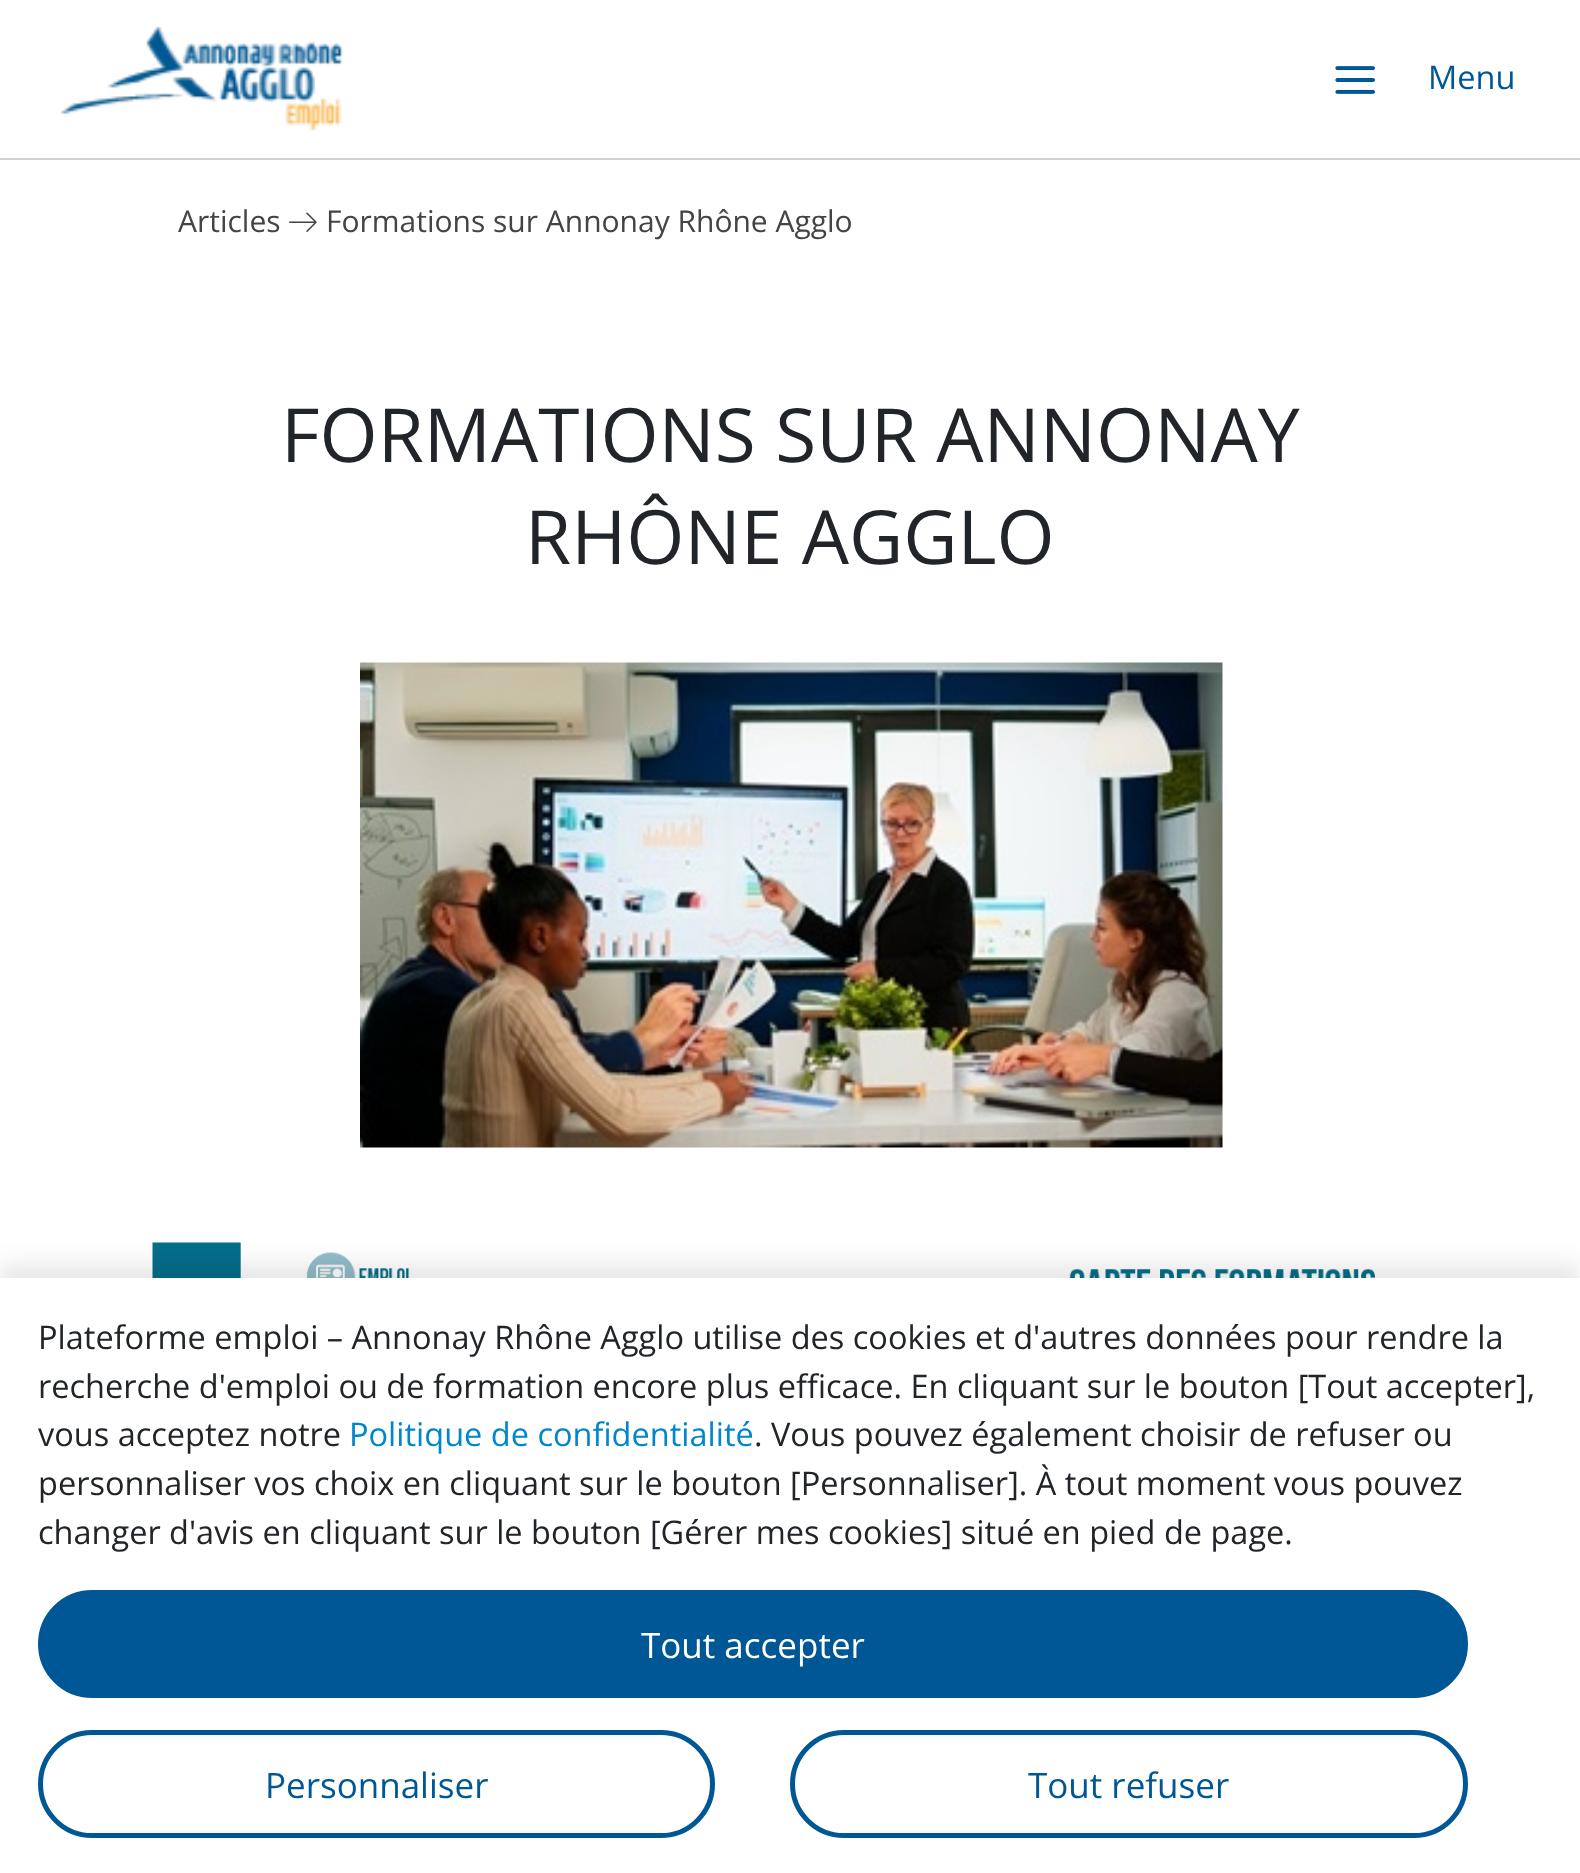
<!DOCTYPE html>
<meta charset="utf-8">
<style>body { margin: 0 } canvas { display: block }</style>
<canvas id="canvas" width="1580" height="1873"></canvas>
<script type="module">
  const canvas = document.getElementById("canvas");
  const g = canvas.getContext("2d");
  g.miterLimit = 4;
  g.fontKerning = "normal";
  function drawText(s, x, y, [font, color]) {
    g.font = font;
    g.fillStyle = color;
    g.fillText(s, x, y);
  }
  function fillBox(x, y, w, h, color) {
    g.fillStyle = color;
    g.fillRect(x, y, w, h);
  }
  async function drawPicture(src, x, y, w, h) {
    const img = new Image();
    img.src = src;
    await img.decode();
    g.drawImage(img, x, y, w, h);
  }

  const s1 = ["32.5px Open Sans", "#005795"];
  const s2 = ["30px Open Sans", "#444444"];
  const s3 = ["74.75px Open Sans", "#212529"];
  const s4 = ["32.5px Open Sans", "#212529"];
  const s5 = ["32.5px Open Sans", "#0086CC"];
  const s6 = ["35px Open Sans", "#FFFFFF"];
  const s7 = ["35px Open Sans", "#005795"];

  fillBox(0, 0, 1580, 1873, "#FFFFFF");
  fillBox(0, 158, 1580, 2, "#D1D1D1");
  await drawPicture("pic1.png", 60, 26, 283, 105);
  await drawPicture("pic2.png", 1335, 66, 40, 28);
  drawText("Menu", 1428, 89, s1);
  drawText("Articles", 178, 232, s2);
  await drawPicture("pic3.png", 289, 212, 28, 20);
  drawText("Formations sur Annonay Rhône Agglo", 326, 232, s2);
  drawText("FORMATIONS SUR ANNONAY", 281, 462, s3);
  drawText("RHÔNE AGGLO", 525, 564, s3);
  await drawPicture("pic4.png", 360, 662, 863, 486);
  await drawPicture("pic5.png", 152, 1242, 1276, 36);
  g.fillStyle = "rgba(0, 0, 0, 0.1)";
  g.filter = "blur(12.5px)";
  g.beginPath();
  g.rect(0, 1265, 1580, 598);
  g.fill();
  g.filter = "none";
  fillBox(0, 1278, 1580, 595, "#FFFFFF");
  drawText("Plateforme emploi – Annonay Rhône Agglo utilise des cookies et d'autres données pour rendre la", 38, 1349, s4);
  drawText("recherche d'emploi ou de formation encore plus efficace. En cliquant sur le bouton [Tout accepter],", 38, 1398, s4);
  drawText("vous acceptez notre", 38, 1446, s4);
  drawText("Politique de confidentialité", 349, 1446, s5);
  drawText(". Vous pouvez également choisir de refuser ou", 754, 1446, s4);
  drawText("personnaliser vos choix en cliquant sur le bouton [Personnaliser]. À tout moment vous pouvez", 38, 1495, s4);
  drawText("changer d'avis en cliquant sur le bouton [Gérer mes cookies] situé en pied de page.", 38, 1544, s4);
  g.fillStyle = "#005795";
  g.beginPath();
  g.roundRect(40.5, 1592.5, 1425, 103, 51.5);
  g.fill();
  g.strokeStyle = "#005795";
  g.lineWidth = 5;
  g.stroke();
  drawText("Tout accepter", 641, 1658, s6);
  g.beginPath();
  g.roundRect(40.5, 1732.5, 672, 103, 51.5);
  g.stroke();
  drawText("Personnaliser", 265, 1798, s7);
  g.beginPath();
  g.roundRect(792.5, 1732.5, 673, 103, 51.5);
  g.stroke();
  drawText("Tout refuser", 1028, 1798, s7);
</script>
